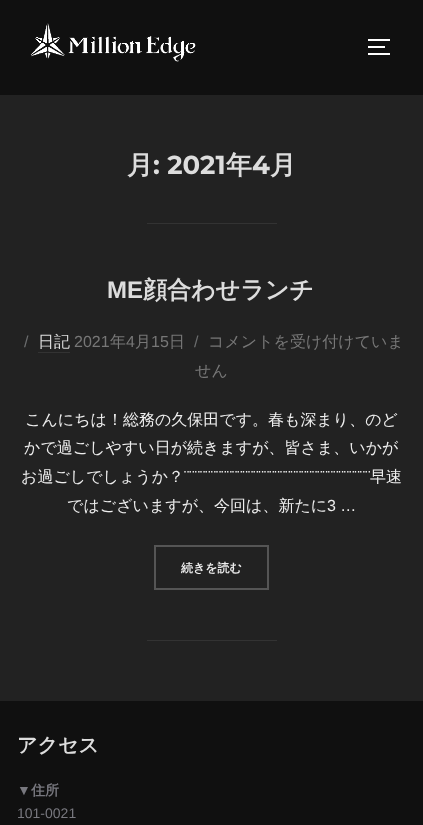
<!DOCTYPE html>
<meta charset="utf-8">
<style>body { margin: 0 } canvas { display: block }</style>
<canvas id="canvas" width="423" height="825"></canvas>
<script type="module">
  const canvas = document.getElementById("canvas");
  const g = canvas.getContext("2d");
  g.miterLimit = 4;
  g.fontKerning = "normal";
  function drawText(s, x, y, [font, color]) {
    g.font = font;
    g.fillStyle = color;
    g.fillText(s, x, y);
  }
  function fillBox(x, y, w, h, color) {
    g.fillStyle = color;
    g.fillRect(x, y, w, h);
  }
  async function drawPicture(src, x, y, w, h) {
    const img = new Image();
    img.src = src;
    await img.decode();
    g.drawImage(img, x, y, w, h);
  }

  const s1 = ["bold 26px WenQuanYi Zen Hei", "#DDDDDD"];
  const s2 = ["bold 26px Montserrat", "#DDDDDD"];
  const s3 = ["bold 24px Liberation Sans", "#DDDDDD"];
  const s4 = ["bold 24px WenQuanYi Zen Hei", "#DDDDDD"];
  const s5 = ["16px Liberation Sans", "#6C6E6F"];
  const s6 = ["500 16px WenQuanYi Zen Hei", "#DDDDDD"];
  const s7 = ["16px Liberation Sans", "#777777"];
  const s8 = ["500 16px WenQuanYi Zen Hei", "#777777"];
  const s9 = ["500 16px WenQuanYi Zen Hei", "#EEEEEE"];
  const s10 = ["16px Liberation Sans", "#EEEEEE"];
  const s11 = ["bold 12px WenQuanYi Zen Hei", "#EEEEEE"];
  const s12 = ["bold 20px WenQuanYi Zen Hei", "#DDDDDD"];
  const s13 = ["bold 14px Liberation Sans", "#78787F"];
  const s14 = ["bold 14px WenQuanYi Zen Hei", "#78787F"];
  const s15 = ["14px Liberation Sans", "#78787F"];

  fillBox(0, 0, 423, 825, "#222222");
  fillBox(0, 0, 423, 95, "#101010");
  await drawPicture("pic1.png", 30, 23, 166, 39);
  fillBox(368, 39, 22, 2, "#FFFFFF");
  fillBox(368, 46, 17, 2, "#FFFFFF");
  fillBox(368, 53, 22, 2, "#FFFFFF");
  drawText("月", 127, 174, s1);
  drawText(": 2021", 153, 174, s2);
  drawText("年", 226, 174, s1);
  drawText("4", 252, 174, s2);
  drawText("月", 270, 174, s1);
  fillBox(147, 223, 130, 1, "#333333");
  drawText("ME", 107, 298, s3);
  drawText("顔合わせランチ", 143, 298, s4);
  drawText("/", 24, 347, s5);
  drawText("日記", 38, 347, s6);
  fillBox(38, 352, 32, 1, "#333333");
  drawText("2021", 74, 347, s7);
  drawText("年", 110, 347, s8);
  drawText("4", 126, 347, s7);
  drawText("月", 135, 347, s8);
  drawText("15", 151, 347, s7);
  drawText("日", 169, 347, s8);
  drawText("/", 194, 347, s5);
  drawText("コメントを受け付けていま", 208, 347, s8);
  drawText("せん", 195, 376, s8);
  drawText("こんにちは！総務の久保田です。春も深まり、のど", 25, 425, s9);
  drawText("かで過ごしやすい日が続きますが、皆さま、いかが", 24, 453, s9);
  drawText("お過ごしでしょうか？", 21, 482, s9);
  drawText("¨¨¨¨¨¨¨¨¨¨¨¨¨¨¨¨¨¨¨¨¨¨¨¨¨¨¨¨¨¨¨¨¨¨¨", 184, 482, s10);
  drawText("早速", 370, 482, s9);
  drawText("ではございますが、今回は、新たに", 67, 511, s9);
  drawText("3 …", 327, 511, s10);
  g.strokeStyle = "#555555";
  g.lineWidth = 2;
  g.strokeRect(155, 546, 113, 43);
  drawText("続きを読む", 181, 572, s11);
  fillBox(147, 640, 130, 1, "#333333");
  fillBox(0, 701, 423, 124, "#101010");
  drawText("アクセス", 17, 752, s12);
  drawText("▼", 17, 795, s13);
  drawText("住所", 31, 795, s14);
  drawText("101-0021", 17, 818, s15);
</script>
